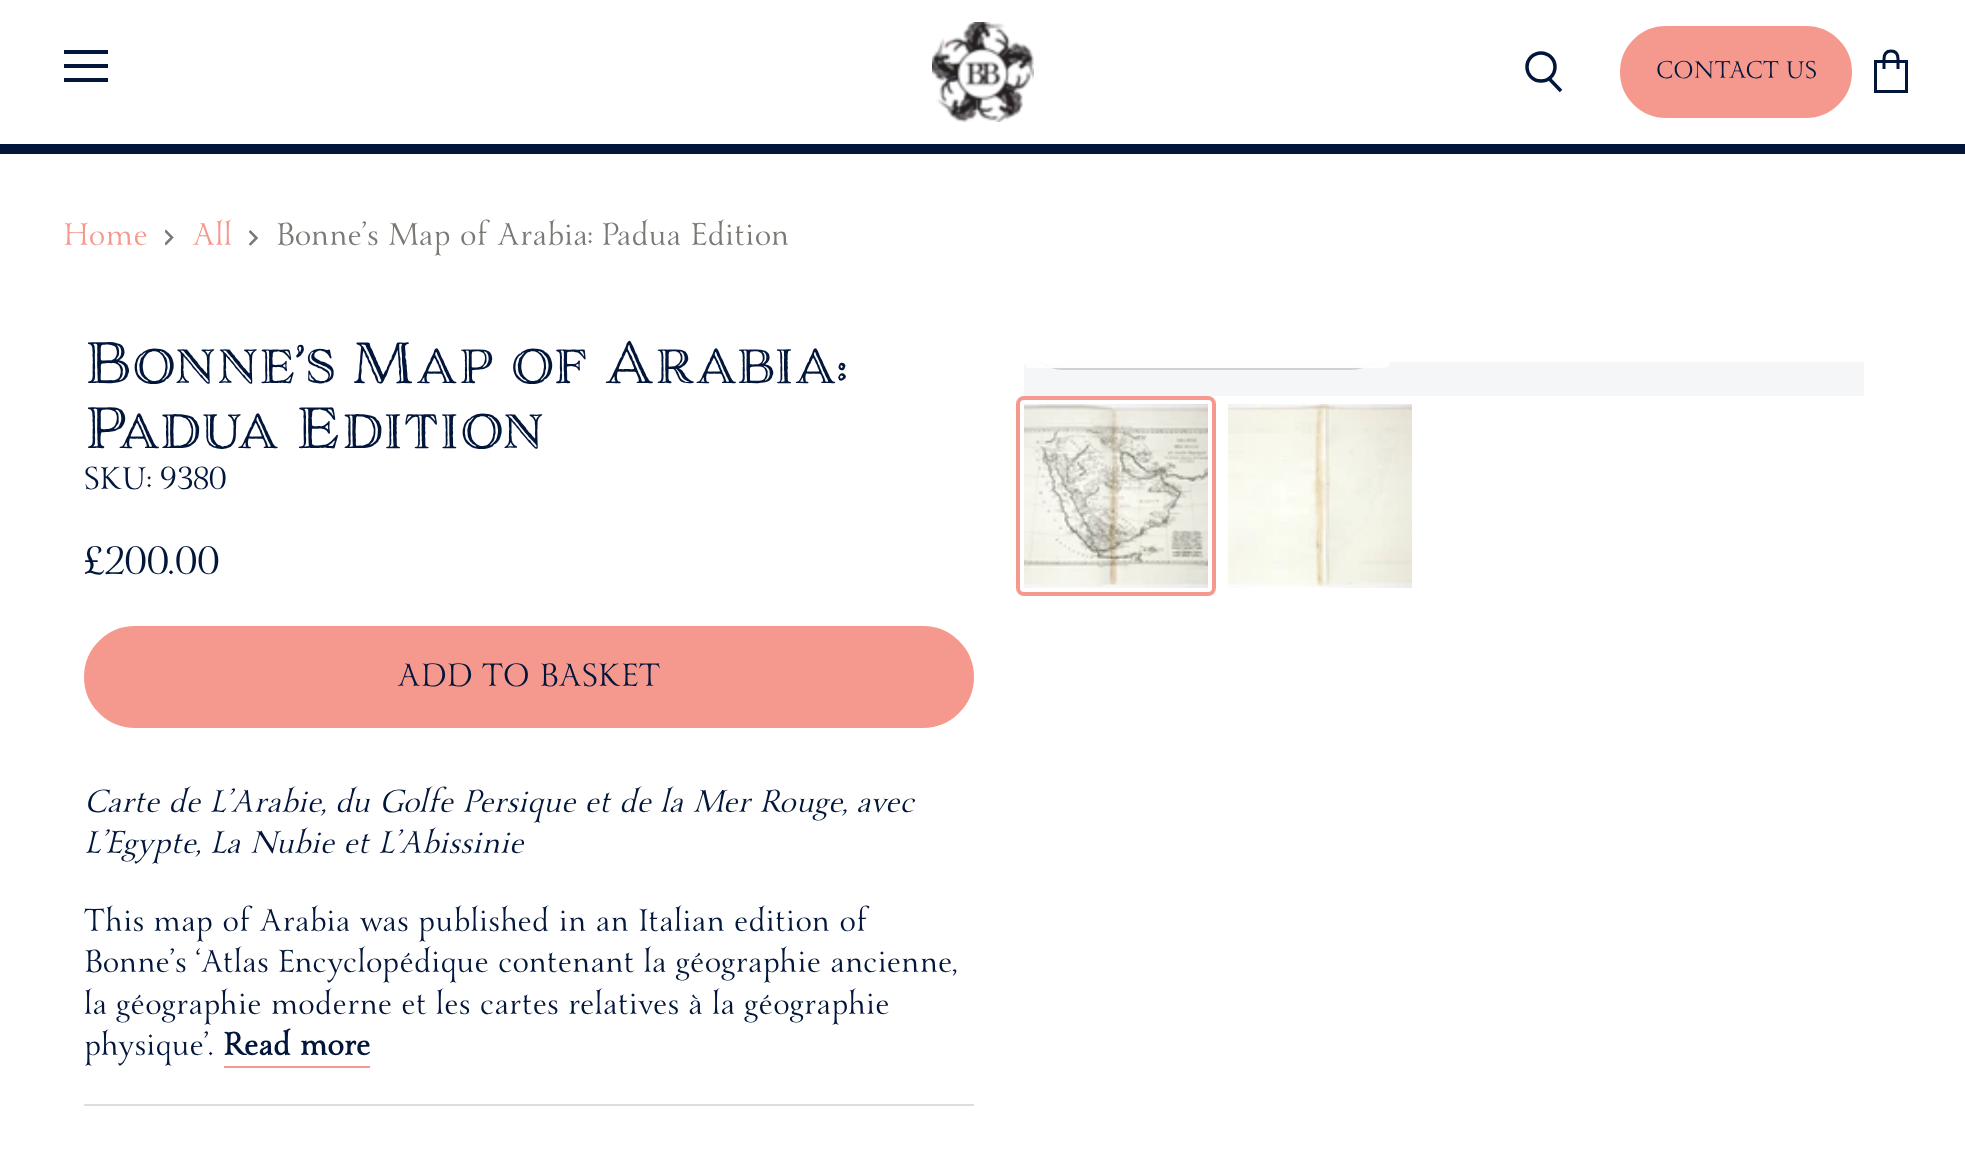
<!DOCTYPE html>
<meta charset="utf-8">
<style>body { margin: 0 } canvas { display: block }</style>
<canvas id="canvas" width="1965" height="1155"></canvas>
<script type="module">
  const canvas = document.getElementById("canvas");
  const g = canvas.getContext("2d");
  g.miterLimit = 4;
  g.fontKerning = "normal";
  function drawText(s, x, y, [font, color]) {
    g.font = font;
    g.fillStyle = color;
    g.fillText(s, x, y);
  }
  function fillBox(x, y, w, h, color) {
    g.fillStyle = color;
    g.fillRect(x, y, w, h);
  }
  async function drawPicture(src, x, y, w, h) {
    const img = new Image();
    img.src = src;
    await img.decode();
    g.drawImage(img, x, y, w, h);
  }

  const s1 = ["27.5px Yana", "#02163B"];
  const s2 = ["36px Yana", "#F5998E"];
  const s3 = ["36px Yana", "#7C7873"];
  const s4 = ["54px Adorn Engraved", "#02163B"];
  const s5 = ["36px Yana", "#02163B"];
  const s6 = ["45px Yana", "#02163B"];
  const s7 = ["36.5px Yana", "#02163B"];
  const s8 = ["italic 36px Yana", "#02163B"];
  const s9 = ["bold 36px Yana", "#02163B"];

  fillBox(0, 0, 1965, 1155, "#FFFFFF");
  fillBox(0, 144, 1965, 10, "#02163B");
  fillBox(64, 50, 44, 4, "#02163B");
  fillBox(64, 64, 44, 4, "#02163B");
  fillBox(64, 78, 44, 4, "#02163B");
  await drawPicture("pic1.png", 932, 22, 102, 100);
  g.beginPath();
  g.moveTo(1561, 91);
  g.lineTo(1549, 78.5);
  g.strokeStyle = "#02163B";
  g.lineWidth = 3.5;
  g.stroke();
  g.beginPath();
  g.arc(1541, 67, 14, 0, Math.PI * 2);
  g.stroke();
  g.fillStyle = "#F5998E";
  g.beginPath();
  g.roundRect(1621, 27, 230, 90, 45);
  g.fill();
  g.strokeStyle = "#F5998E";
  g.lineWidth = 2;
  g.stroke();
  g.letterSpacing = "0.25px";
  drawText("CONTACT US", 1656, 78, s1);
  g.beginPath();
  g.moveTo(1875.5, 61.5);
  g.lineTo(1906.5, 61.5);
  g.lineTo(1906.5, 91.5);
  g.lineTo(1875.5, 91.5);
  g.closePath();
  g.moveTo(1898, 69);
  g.lineTo(1898, 59);
  g.bezierCurveTo(1898, 53.5, 1895, 51, 1891, 51);
  g.bezierCurveTo(1887, 51, 1884, 53.5, 1884, 59);
  g.lineTo(1884, 69);
  g.strokeStyle = "#02163B";
  g.lineWidth = 3;
  g.stroke();
  g.letterSpacing = "0.18px";
  drawText("Home", 63, 245, s2);
  g.save();
  g.beginPath();
  g.moveTo(165, 245.5);
  g.lineTo(165, 229.5);
  g.lineTo(175, 229.5);
  g.lineTo(175, 245.5);
  g.closePath();
  g.clip();
  g.beginPath();
  g.moveTo(165, 244.5);
  g.lineTo(172, 237.5);
  g.lineTo(165, 230.5);
  g.strokeStyle = "#7C7873";
  g.lineWidth = 2.5;
  g.stroke();
  g.restore();
  drawText("All", 192, 245, s2);
  g.save();
  g.beginPath();
  g.moveTo(249, 245.5);
  g.lineTo(249, 229.5);
  g.lineTo(259, 229.5);
  g.lineTo(259, 245.5);
  g.closePath();
  g.clip();
  g.beginPath();
  g.moveTo(249.5, 245);
  g.lineTo(256.5, 238);
  g.lineTo(249.5, 231);
  g.strokeStyle = "#7C7873";
  g.lineWidth = 2.5;
  g.stroke();
  g.restore();
  drawText("Bonne’s Map of Arabia: Padua Edition", 276, 245, s3);
  g.letterSpacing = "0px";
  drawText("Bonne’s Map of Arabia:", 84, 383, s4);
  drawText("Padua Edition", 84, 448, s4);
  g.letterSpacing = "0.18px";
  drawText("SKU: 9380", 84, 489, s5);
  g.letterSpacing = "0px";
  drawText("£200.00", 84, 574, s6);
  g.fillStyle = "#F5998E";
  g.beginPath();
  g.roundRect(85, 627, 888, 100, 50);
  g.fill();
  g.strokeStyle = "#F5998E";
  g.lineWidth = 2;
  g.stroke();
  g.letterSpacing = "0.4px";
  drawText("ADD TO BASKET", 397, 686, s7);
  fillBox(84, 1104, 890, 2, "#DDDDDD");
  g.letterSpacing = "0.18px";
  drawText("Carte de L’Arabie, du Golfe Persique et de la Mer Rouge, avec", 84, 812, s8);
  drawText("L’Egypte, La Nubie et L’Abissinie", 84, 853, s8);
  drawText("This map of Arabia was published in an Italian edition of", 84, 931, s5);
  drawText("Bonne’s ‘Atlas Encyclopédique contenant la géographie ancienne,", 84, 972, s5);
  drawText("la géographie moderne et les cartes relatives à la géographie", 84, 1014, s5);
  drawText("physique’.", 84, 1055, s5);
  drawText("Read more", 223, 1055, s9);
  fillBox(224, 1066, 146, 2, "#F5998E");
  fillBox(1024, 362, 840, 34, "#F5F6F7");
  g.save();
  g.beginPath();
  g.rect(1024, 362, 840, 34);
  g.clip();
  g.beginPath();
  g.roundRect(1023, 287, 368, 82, 41);
  g.strokeStyle = "#D0D1D2";
  g.stroke();
  g.restore();
  g.fillStyle = "rgba(255, 255, 255, 0.9)";
  g.beginPath();
  g.roundRect(1024, 362, 366, 6, [0, 0, 40, 40]);
  g.fill();
  g.beginPath();
  g.roundRect(1018, 398, 196, 196, 6);
  g.lineWidth = 4;
  g.stroke();
  await drawPicture("pic2.png", 1024, 404, 184, 184);
  await drawPicture("pic3.png", 1228, 404, 184, 184);
</script>
